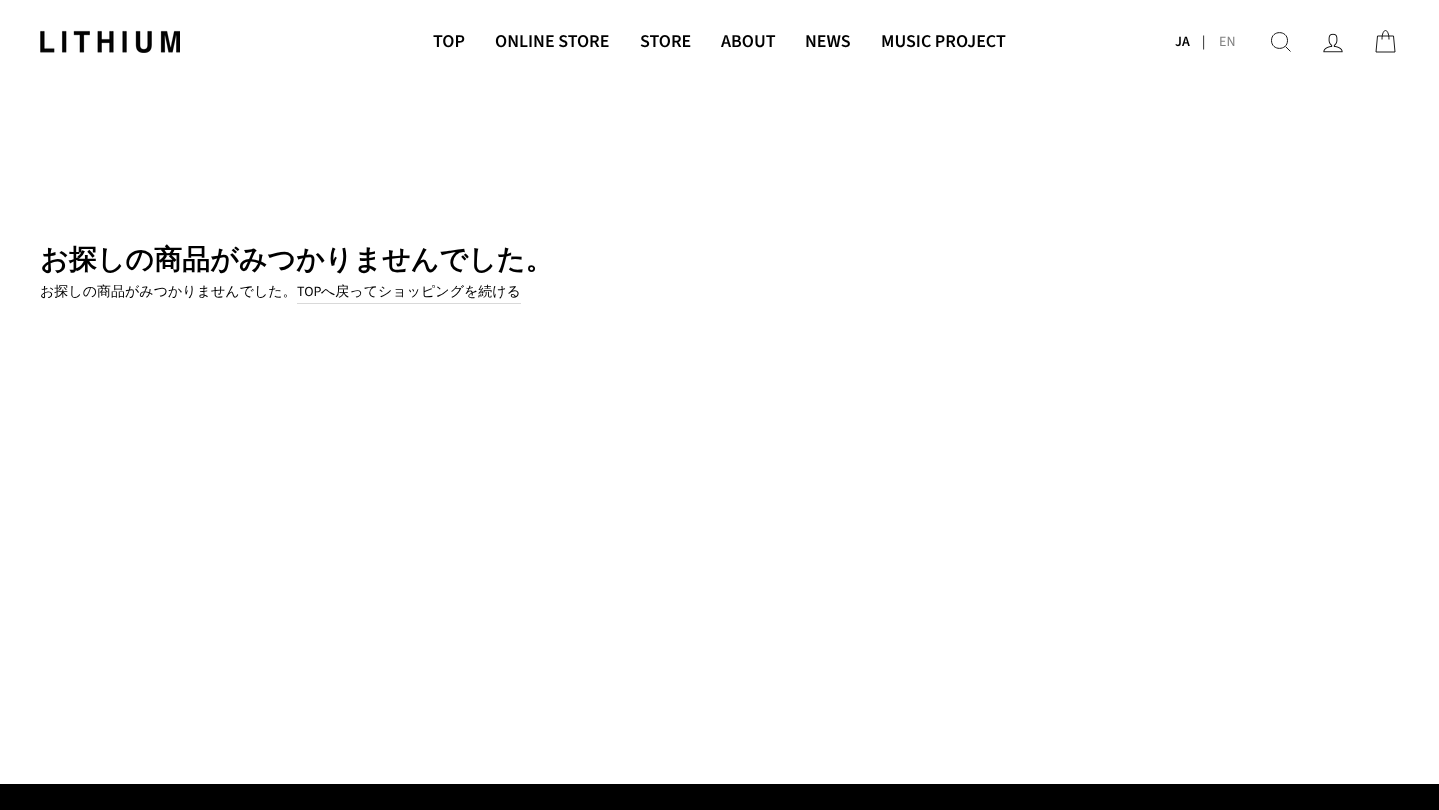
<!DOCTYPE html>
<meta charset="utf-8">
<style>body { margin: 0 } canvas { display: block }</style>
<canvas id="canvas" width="1439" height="810"></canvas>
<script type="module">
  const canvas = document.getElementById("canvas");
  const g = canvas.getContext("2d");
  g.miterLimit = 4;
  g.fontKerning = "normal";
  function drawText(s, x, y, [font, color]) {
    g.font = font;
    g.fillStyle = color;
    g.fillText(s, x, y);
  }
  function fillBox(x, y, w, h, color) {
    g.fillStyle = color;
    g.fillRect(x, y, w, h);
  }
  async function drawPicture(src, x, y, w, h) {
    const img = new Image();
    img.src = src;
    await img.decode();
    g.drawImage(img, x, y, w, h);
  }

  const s1 = ["600 18px Source Sans Pro", "#000000"];
  const s2 = ["600 14px Source Sans Pro", "#000000"];
  const s3 = ["14px Source Sans Pro", "#000000"];
  const s4 = ["14px Source Sans Pro", "#808080"];
  const s5 = ["bold 28px WenQuanYi Zen Hei", "#000000"];
  const s6 = ["500 14px WenQuanYi Zen Hei", "#000000"];

  fillBox(0, 0, 1439, 810, "#FFFFFF");
  await drawPicture("pic1.png", 40, 30, 140, 23);
  drawText("TOP", 433, 47, s1);
  drawText("ONLINE STORE", 495, 47, s1);
  drawText("STORE", 640, 47, s1);
  drawText("ABOUT", 721, 47, s1);
  drawText("NEWS", 805, 47, s1);
  drawText("MUSIC PROJECT", 881, 47, s1);
  drawText("JA", 1175, 46, s2);
  drawText("|", 1202, 46, s3);
  drawText("EN", 1219, 46, s4);
  g.beginPath();
  g.moveTo(1287.5, 40.5);
  g.bezierCurveTo(1287.5, 51, 1271.5, 51, 1271.5, 40.5);
  g.bezierCurveTo(1271.5, 30, 1287.5, 30, 1287.5, 40.5);
  g.closePath();
  g.moveTo(1290.5, 51.5);
  g.lineTo(1285.5, 46.5);
  g.strokeStyle = "#000000";
  g.lineWidth = 0.9;
  g.stroke();
  await drawPicture("pic2.png", 1323, 33, 20, 20);
  g.beginPath();
  g.moveTo(1382, 39.5);
  g.bezierCurveTo(1382, 27.5, 1389, 27.5, 1389, 39.5);
  g.moveTo(1377.5, 36);
  g.lineTo(1393.5, 36);
  g.lineTo(1395, 52);
  g.lineTo(1376, 52);
  g.closePath();
  g.stroke();
  drawText("お探しの商品がみつかりませんでした。", 40, 269, s5);
  drawText("お探しの商品がみつかりませんでした。", 40, 296, s6);
  fillBox(297, 303, 224, 1, "#D9D9D9");
  drawText("TOP", 297, 296, s3);
  drawText("へ戻ってショッピングを続ける", 321, 296, s6);
  fillBox(0, 784, 1439, 26, "#000000");
</script>
